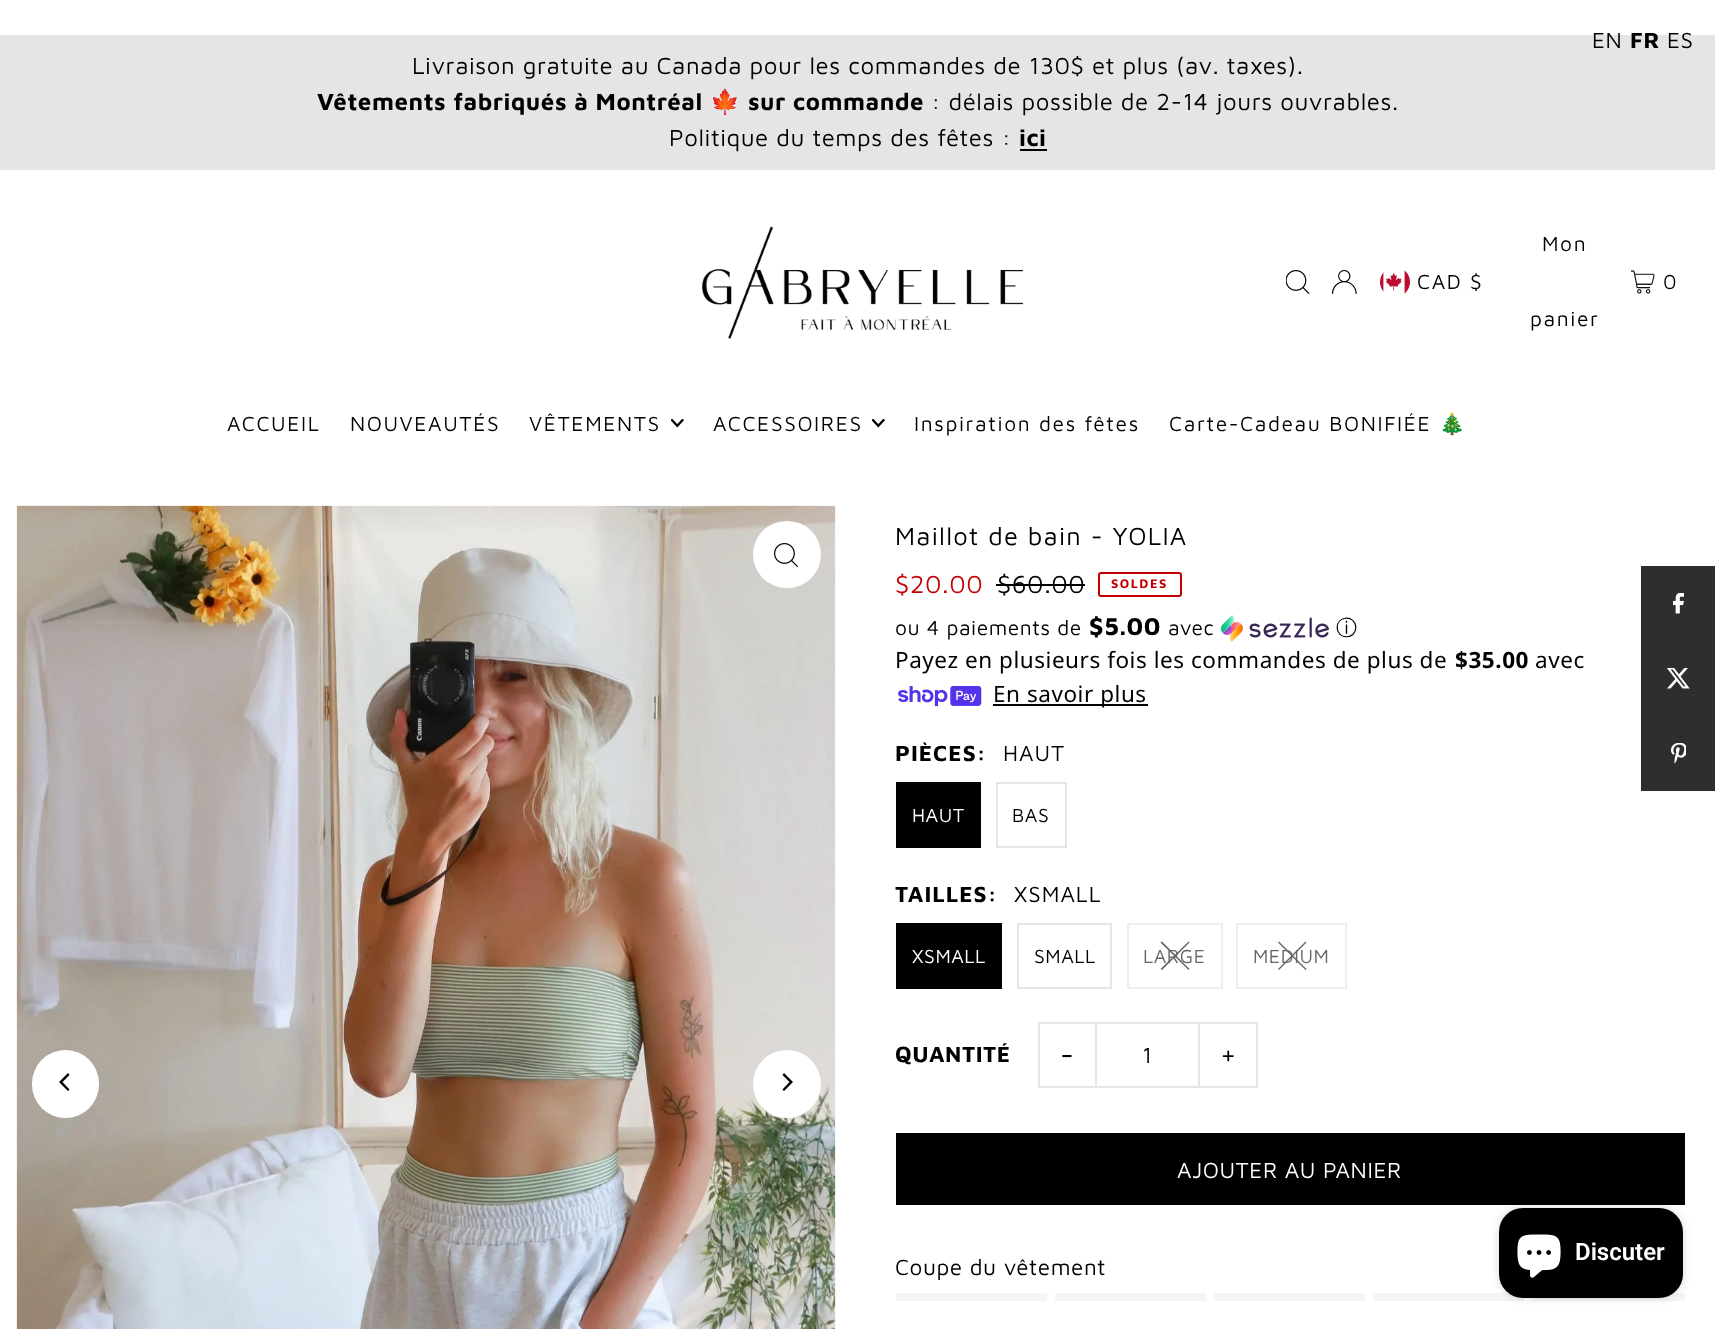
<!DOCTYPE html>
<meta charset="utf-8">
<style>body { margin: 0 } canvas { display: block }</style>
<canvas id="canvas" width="1715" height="1329"></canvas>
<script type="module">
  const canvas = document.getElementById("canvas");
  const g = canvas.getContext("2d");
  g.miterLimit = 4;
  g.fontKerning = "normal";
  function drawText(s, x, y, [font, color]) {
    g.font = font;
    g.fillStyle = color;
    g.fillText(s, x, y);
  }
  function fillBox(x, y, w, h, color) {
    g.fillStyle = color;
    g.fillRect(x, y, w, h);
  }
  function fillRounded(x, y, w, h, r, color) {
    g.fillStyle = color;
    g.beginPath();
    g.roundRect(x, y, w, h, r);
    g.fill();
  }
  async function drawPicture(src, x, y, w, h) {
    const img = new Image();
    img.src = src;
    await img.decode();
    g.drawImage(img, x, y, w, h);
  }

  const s1 = ["22.5px Maven Pro", "#000000"];
  const s2 = ["bold 22.5px Maven Pro", "#000000"];
  const s3 = ["24px Maven Pro", "#000000"];
  const s4 = ["bold 24px Maven Pro", "#000000"];
  const s5 = ["24px Noto Color Emoji", "#000000"];
  const s6 = ["21px Maven Pro", "#000000"];
  const s7 = ["21px Noto Color Emoji", "#000000"];
  const s8 = ["25.5px Maven Pro", "#000000"];
  const s9 = ["25.5px Maven Pro", "#C50000"];
  const s10 = ["bold 12.75px Maven Pro", "#C50000"];
  const s11 = ["bold 25px Maven Pro", "#000000"];
  const s12 = ["500 21px WenQuanYi Zen Hei", "#000000"];
  const s13 = ["22.5px Noto Sans", "#000000"];
  const s14 = ["bold 22.5px Noto Sans", "#000000"];
  const s15 = ["19.5px Maven Pro", "#FFFFFF"];
  const s16 = ["19.5px Maven Pro", "#000000"];
  const s17 = ["19.5px Maven Pro", "#666666"];
  const s18 = ["30px Maven Pro", "#000000"];
  const s19 = ["22.5px Maven Pro", "#FFFFFF"];
  const s20 = ["600 24px Roboto", "#FFFFFF"];

  fillBox(0, 0, 1715, 1329, "#FFFFFF");
  fillBox(0, 35, 1715, 135, "#E5E5E5");
  g.letterSpacing = "0.55px";
  drawText("EN", 1592, 48, s1);
  drawText("FR", 1630, 48, s2);
  drawText("ES", 1667, 48, s1);
  drawText("Livraison gratuite au Canada pour les commandes de 130$ et plus (av. taxes).", 412, 74, s3);
  drawText("Vêtements fabriqués à Montréal", 317, 110, s4);
  drawText("🍁", 710, 110, s5);
  drawText("sur commande", 748, 110, s4);
  drawText(": délais possible de 2-14 jours ouvrables.", 931, 110, s3);
  drawText("Politique du temps des fêtes :", 669, 146, s3);
  drawText("ici", 1019, 146, s4);
  fillBox(1020, 149, 27, 2, "#000000");
  await drawPicture("pic1.png", 702, 226, 322, 113);
  await drawPicture("pic2.png", 1286, 270, 24, 24);
  await drawPicture("pic3.png", 1332, 270, 25, 24);
  await drawPicture("pic4.png", 1380, 270, 30, 24);
  g.letterSpacing = "1.6px";
  drawText("CAD $", 1417, 289, s6);
  drawText("Mon", 1542, 251, s6);
  drawText("panier", 1530, 326, s6);
  await drawPicture("pic5.png", 1631, 270, 24, 24);
  drawText("0", 1663, 289, s6);
  drawText("ACCUEIL", 227, 431, s6);
  drawText("NOUVEAUTÉS", 350, 431, s6);
  drawText("VÊTEMENTS", 529, 431, s6);
  await drawPicture("pic6.png", 671, 419, 13, 9);
  drawText("ACCESSOIRES", 713, 431, s6);
  await drawPicture("pic6.png", 872, 419, 13, 9);
  drawText("Inspiration des fêtes", 914, 431, s6);
  drawText("Carte-Cadeau BONIFIÉE", 1169, 431, s6);
  drawText("🎄", 1439, 431, s7);
  await drawPicture("pic7.png", 16, 505, 820, 824);
  fillRounded(753, 521, 68, 67, 33.5, "#FFFFFF");
  await drawPicture("pic8.png", 774, 543, 24, 24);
  fillRounded(32, 1050, 67, 68, 33.5, "#FFFFFF");
  g.fillStyle = "#000000";
  g.beginPath();
  g.moveTo(59, 1082);
  g.lineTo(68, 1091);
  g.lineTo(69.5, 1089.5);
  g.lineTo(62.5, 1082);
  g.lineTo(69.5, 1075);
  g.lineTo(68, 1073);
  g.closePath();
  g.fill();
  g.fillStyle = "#FFFFFF";
  g.beginPath();
  g.arc(787, 1084, 34, 0, Math.PI * 2);
  g.fill();
  g.fillStyle = "#000000";
  g.beginPath();
  g.moveTo(793, 1082);
  g.lineTo(784, 1073);
  g.lineTo(782.5, 1075);
  g.lineTo(789.5, 1082);
  g.lineTo(782.5, 1089.5);
  g.lineTo(784, 1091);
  g.closePath();
  g.fill();
  g.letterSpacing = "1.25px";
  drawText("Maillot de bain - YOLIA", 895, 545, s8);
  g.letterSpacing = "0.55px";
  drawText("$20.00", 895, 593, s9);
  drawText("$60.00", 997, 593, s8);
  fillBox(996, 584, 89, 2, "#000000");
  g.beginPath();
  g.roundRect(1099, 573, 82, 23, 2);
  g.strokeStyle = "#C50000";
  g.lineWidth = 2;
  g.stroke();
  g.letterSpacing = "1.5px";
  drawText("SOLDES", 1111, 588, s10);
  g.letterSpacing = "0.55px";
  drawText("ou 4 paiements de", 895, 635, s6);
  drawText("$5.00", 1089, 635, s11);
  drawText("avec", 1168, 635, s6);
  await drawPicture("pic9.png", 1221, 615, 108, 27);
  drawText("ⓘ", 1336, 635, s12);
  drawText("Payez en plusieurs fois les commandes de plus de", 895, 668, s13);
  drawText("$35.00", 1455, 668, s14);
  drawText("avec", 1535, 668, s13);
  await drawPicture("pic10.png", 898, 686, 84, 21);
  fillBox(993, 704, 155, 2, "#000000");
  drawText("En savoir plus", 993, 702, s13);
  g.letterSpacing = "1px";
  drawText("PIÈCES:", 895, 761, s2);
  drawText("HAUT", 1003, 761, s1);
  fillBox(896, 782, 85, 66, "#000000");
  g.letterSpacing = "0.55px";
  drawText("HAUT", 912, 822, s15);
  g.strokeStyle = "#E5E5E5";
  g.strokeRect(997, 783, 69, 64);
  drawText("BAS", 1012, 822, s16);
  g.letterSpacing = "1px";
  drawText("TAILLES:", 895, 902, s2);
  drawText("XSMALL", 1014, 902, s1);
  fillBox(896, 923, 106, 66, "#000000");
  g.letterSpacing = "0.55px";
  drawText("XSMALL", 912, 963, s15);
  g.strokeRect(1018, 924, 93, 64);
  drawText("SMALL", 1034, 963, s16);
  g.strokeStyle = "#EFEFEF";
  g.strokeRect(1128, 924, 94, 64);
  g.fillStyle = "#666666";
  g.beginPath();
  g.moveTo(1188.5, 941.5);
  g.lineTo(1189.5, 942.5);
  g.lineTo(1162, 970);
  g.lineTo(1160.5, 969);
  g.closePath();
  g.fill();
  g.beginPath();
  g.moveTo(1189.5, 969);
  g.lineTo(1188.5, 970);
  g.lineTo(1160.5, 942.5);
  g.lineTo(1162, 941.5);
  g.closePath();
  g.fill();
  drawText("LARGE", 1143, 963, s17);
  g.strokeRect(1237, 924, 109, 64);
  g.beginPath();
  g.moveTo(1305.5, 941.5);
  g.lineTo(1306.5, 942.5);
  g.lineTo(1279, 970);
  g.lineTo(1278, 969);
  g.closePath();
  g.fill();
  g.beginPath();
  g.moveTo(1306.5, 969);
  g.lineTo(1305.5, 970);
  g.lineTo(1278, 942.5);
  g.lineTo(1279, 941.5);
  g.closePath();
  g.fill();
  drawText("MEDIUM", 1253, 963, s17);
  drawText("QUANTITÉ", 895, 1062, s2);
  fillBox(1038, 1022, 57, 2, "#E5E5E5");
  fillBox(1038, 1086, 57, 2, "#E5E5E5");
  fillBox(1038, 1022, 2, 66, "#E5E5E5");
  g.letterSpacing = "1px";
  drawText("-", 1060, 1065, s18);
  g.strokeStyle = "#E5E5E5";
  g.strokeRect(1096, 1023, 103, 64);
  g.letterSpacing = "0.55px";
  drawText("1", 1142, 1063, s1);
  fillBox(1200, 1022, 57, 2, "#E5E5E5");
  fillBox(1256, 1022, 2, 66, "#E5E5E5");
  fillBox(1200, 1086, 57, 2, "#E5E5E5");
  g.letterSpacing = "1px";
  drawText("+", 1220, 1065, s18);
  fillBox(896, 1133, 789, 72, "#000000");
  g.letterSpacing = "0.55px";
  drawText("AJOUTER AU PANIER", 1177, 1178, s19);
  drawText("Coupe du vêtement", 895, 1275, s1);
  fillBox(896, 1293, 151, 8, "#F5F5F5");
  fillBox(1055, 1293, 151, 8, "#F5F5F5");
  fillBox(1214, 1293, 151, 8, "#F5F5F5");
  fillBox(1373, 1293, 151, 8, "#F5F5F5");
  fillBox(1532, 1293, 153, 8, "#F5F5F5");
  fillBox(1641, 566, 74, 225, "#2F2D30");
  await drawPicture("pic11.png", 1673, 593, 12, 21);
  await drawPicture("pic12.png", 1667, 668, 23, 21);
  await drawPicture("pic13.png", 1671, 743, 15, 21);
  g.fillStyle = "rgba(0, 0, 0, 0.15)";
  g.filter = "blur(4px)";
  g.beginPath();
  g.roundRect(1499, 1208, 184, 90, 24);
  g.fill();
  g.filter = "none";
  fillRounded(1499, 1208, 184, 90, 24, "#000000");
  await drawPicture("pic14.png", 1517, 1234, 44, 44);
  g.letterSpacing = "0px";
  drawText("Discuter", 1575, 1260, s20);
</script>
